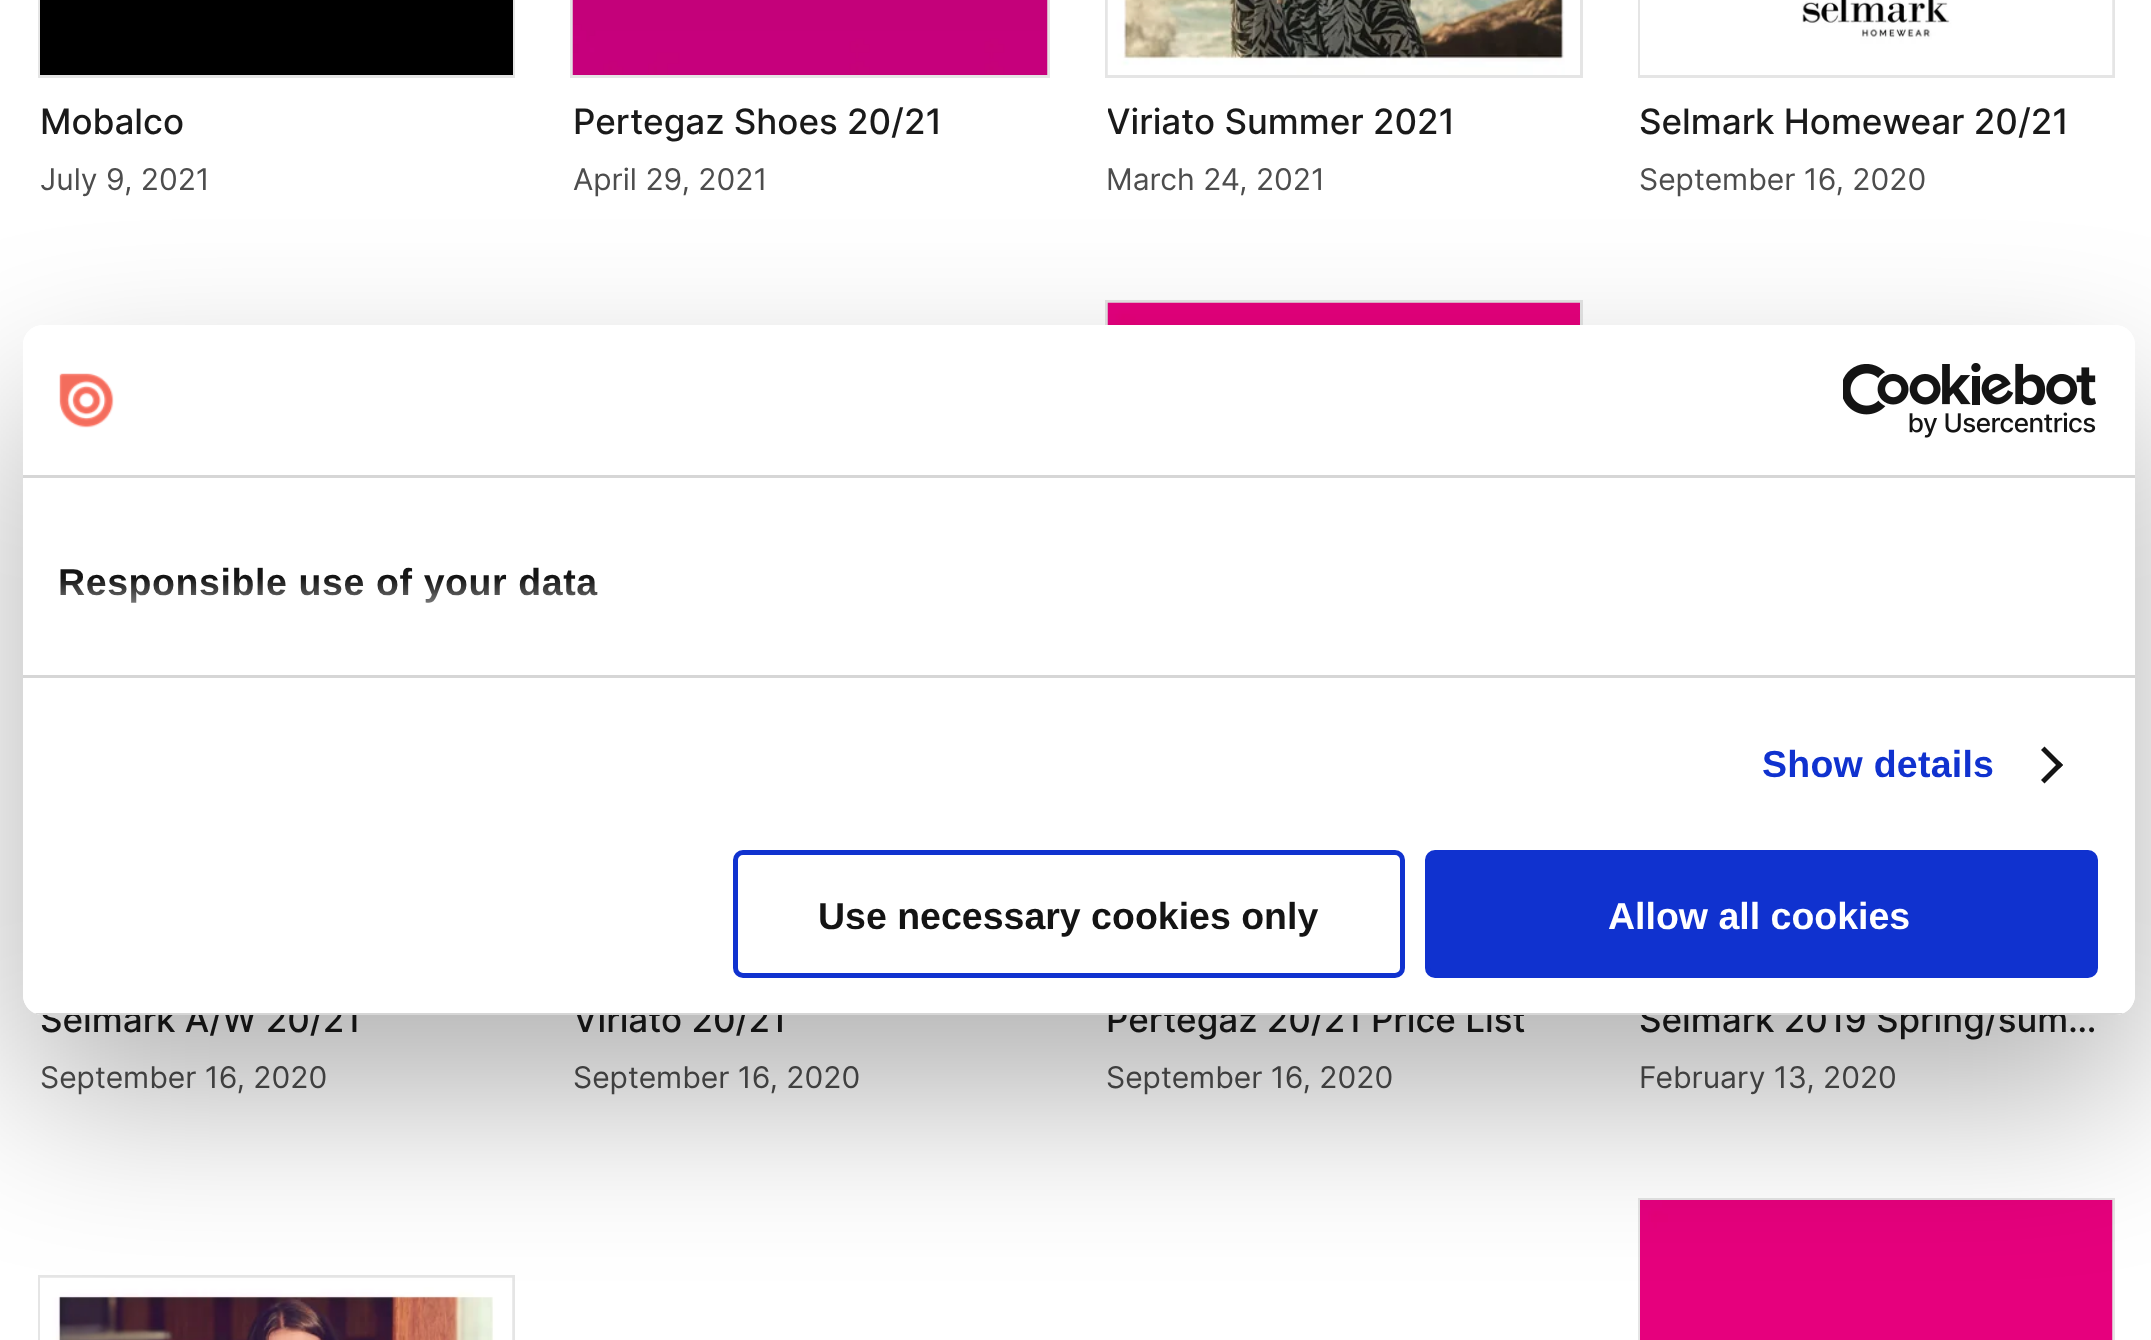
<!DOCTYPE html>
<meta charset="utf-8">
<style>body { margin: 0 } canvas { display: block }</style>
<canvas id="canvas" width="2151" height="1340"></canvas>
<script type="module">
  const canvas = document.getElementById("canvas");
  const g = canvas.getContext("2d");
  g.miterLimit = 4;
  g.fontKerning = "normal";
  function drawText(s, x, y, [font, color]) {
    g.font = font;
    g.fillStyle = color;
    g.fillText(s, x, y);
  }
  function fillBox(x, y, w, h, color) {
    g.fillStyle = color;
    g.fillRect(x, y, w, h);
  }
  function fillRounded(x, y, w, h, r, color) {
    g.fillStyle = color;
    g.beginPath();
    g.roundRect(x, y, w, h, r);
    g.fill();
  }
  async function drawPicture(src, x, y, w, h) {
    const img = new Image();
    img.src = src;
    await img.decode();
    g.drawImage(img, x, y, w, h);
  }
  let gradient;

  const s1 = ["500 35px Inter", "#1A1A1A"];
  const s2 = ["30px Inter", "#4D4D4D"];
  const s3 = ["bold 37.5px Liberation Sans", "#141414"];
  const s4 = ["bold 37.5px Liberation Sans", "#1032CF"];
  const s5 = ["bold 37.5px Liberation Sans", "#FFFFFF"];

  fillBox(0, 0, 2151, 1340, "#FFFFFF");
  g.strokeStyle = "#E5E5E5";
  g.lineWidth = 3;
  g.strokeRect(39.5, -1.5, 474, 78);
  fillBox(40, 0, 473, 75, "#000000");
  drawText("Mobalco", 40, 134, s1);
  drawText("July 9, 2021", 40, 190, s2);
  g.strokeRect(571.5, -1.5, 477, 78);
  await drawPicture("pic1.png", 572, 0, 476, 75);
  drawText("Pertegaz Shoes 20/21", 573, 134, s1);
  drawText("April 29, 2021", 573, 190, s2);
  g.strokeRect(1106.5, -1.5, 475, 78);
  await drawPicture("pic2.png", 1107, 0, 458, 75);
  g.save();
  g.beginPath();
  g.rect(1108, 75, 472, 75);
  g.clip();
  drawText("Viriato Summer 2021", 1106, 134, s1);
  g.restore();
  drawText("March 24, 2021", 1106, 190, s2);
  g.strokeRect(1639.5, -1.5, 474, 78);
  await drawPicture("pic3.png", 1640, 0, 473, 75);
  drawText("Selmark Homewear 20/21", 1639, 134, s1);
  drawText("September 16, 2020", 1639, 190, s2);
  drawText("Selmark A/W 20/21", 40, 1032, s1);
  drawText("September 16, 2020", 40, 1088, s2);
  drawText("Viriato 20/21", 573, 1032, s1);
  drawText("September 16, 2020", 573, 1088, s2);
  g.strokeRect(1106.5, 301.5, 475, 672);
  await drawPicture("pic4.png", 1107, 302, 473, 23);
  drawText("Pertegaz 20/21 Price List", 1106, 1032, s1);
  drawText("September 16, 2020", 1106, 1088, s2);
  drawText("Selmark 2019 Spring/sum…", 1639, 1032, s1);
  drawText("February 13, 2020", 1639, 1088, s2);
  g.strokeRect(39.5, 1276.5, 474, 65);
  await drawPicture("pic5.png", 40, 1277, 473, 63);
  g.strokeRect(1639.5, 1199.5, 474, 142);
  await drawPicture("pic6.png", 1640, 1200, 473, 140);
  g.save();
  g.beginPath();
  g.moveTo(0, 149);
  g.lineTo(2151, 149);
  g.lineTo(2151, 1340);
  g.lineTo(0, 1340);
  g.closePath();
  g.moveTo(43, 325);
  g.lineTo(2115, 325);
  g.bezierCurveTo(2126, 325, 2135, 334, 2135, 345);
  g.lineTo(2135, 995);
  g.bezierCurveTo(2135, 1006, 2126, 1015, 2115, 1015);
  g.lineTo(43, 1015);
  g.bezierCurveTo(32, 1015, 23, 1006, 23, 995);
  g.lineTo(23, 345);
  g.bezierCurveTo(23, 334, 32, 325, 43, 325);
  g.closePath();
  g.clip("evenodd");
  g.fillStyle = "rgba(0, 0, 0, 0.3)";
  g.filter = "blur(85px)";
  g.beginPath();
  g.roundRect(23, 405, 2112, 690, 20);
  g.fill();
  g.filter = "none";
  g.restore();
  fillRounded(23, 325, 2112, 690, 20, "#FFFFFF");
  fillBox(23, 475, 2112, 3, "#D6D6D6");
  await drawPicture("pic7.png", 59, 373, 55, 55);
  await drawPicture("pic8.png", 1843, 363, 253, 75);
  fillBox(23, 675, 2112, 3, "#D6D6D6");
  g.letterSpacing = "0.6px";
  drawText("Responsible use of your data", 58, 595, s3);
  gradient = g.createLinearGradient(1061, 675, 1061, 578);
  gradient.addColorStop(0, "#FFFFFF");
  gradient.addColorStop(0.5, "rgba(255, 255, 255, 0.8)");
  gradient.addColorStop(1, "rgba(255, 255, 255, 0)");
  g.fillStyle = gradient;
  g.fillRect(60, 579, 538, 24);
  g.letterSpacing = "0.25px";
  drawText("Show details", 1762, 777, s4);
  g.fillStyle = "#141414";
  g.beginPath();
  g.moveTo(2044.5, 746.5);
  g.lineTo(2063, 765);
  g.lineTo(2059.5, 768.5);
  g.lineTo(2041, 750);
  g.closePath();
  g.fill();
  g.beginPath();
  g.moveTo(2059.5, 761.5);
  g.lineTo(2063, 765);
  g.lineTo(2044.5, 783.5);
  g.lineTo(2041, 780);
  g.closePath();
  g.fill();
  g.save();
  g.beginPath();
  g.roundRect(23, 325, 2112, 690, 20);
  g.clip();
  fillBox(34, 1013, 2090, 2, "#D6D6D6");
  g.restore();
  g.beginPath();
  g.roundRect(735.5, 852.5, 667, 123, 7.5);
  g.strokeStyle = "#1032CF";
  g.lineWidth = 5;
  g.stroke();
  g.letterSpacing = "0px";
  drawText("Use necessary cookies only", 818, 929, s3);
  g.fillStyle = "#1032CF";
  g.beginPath();
  g.roundRect(1427.5, 852.5, 668, 123, 7.5);
  g.fill();
  g.stroke();
  drawText("Allow all cookies", 1608, 929, s5);
</script>
